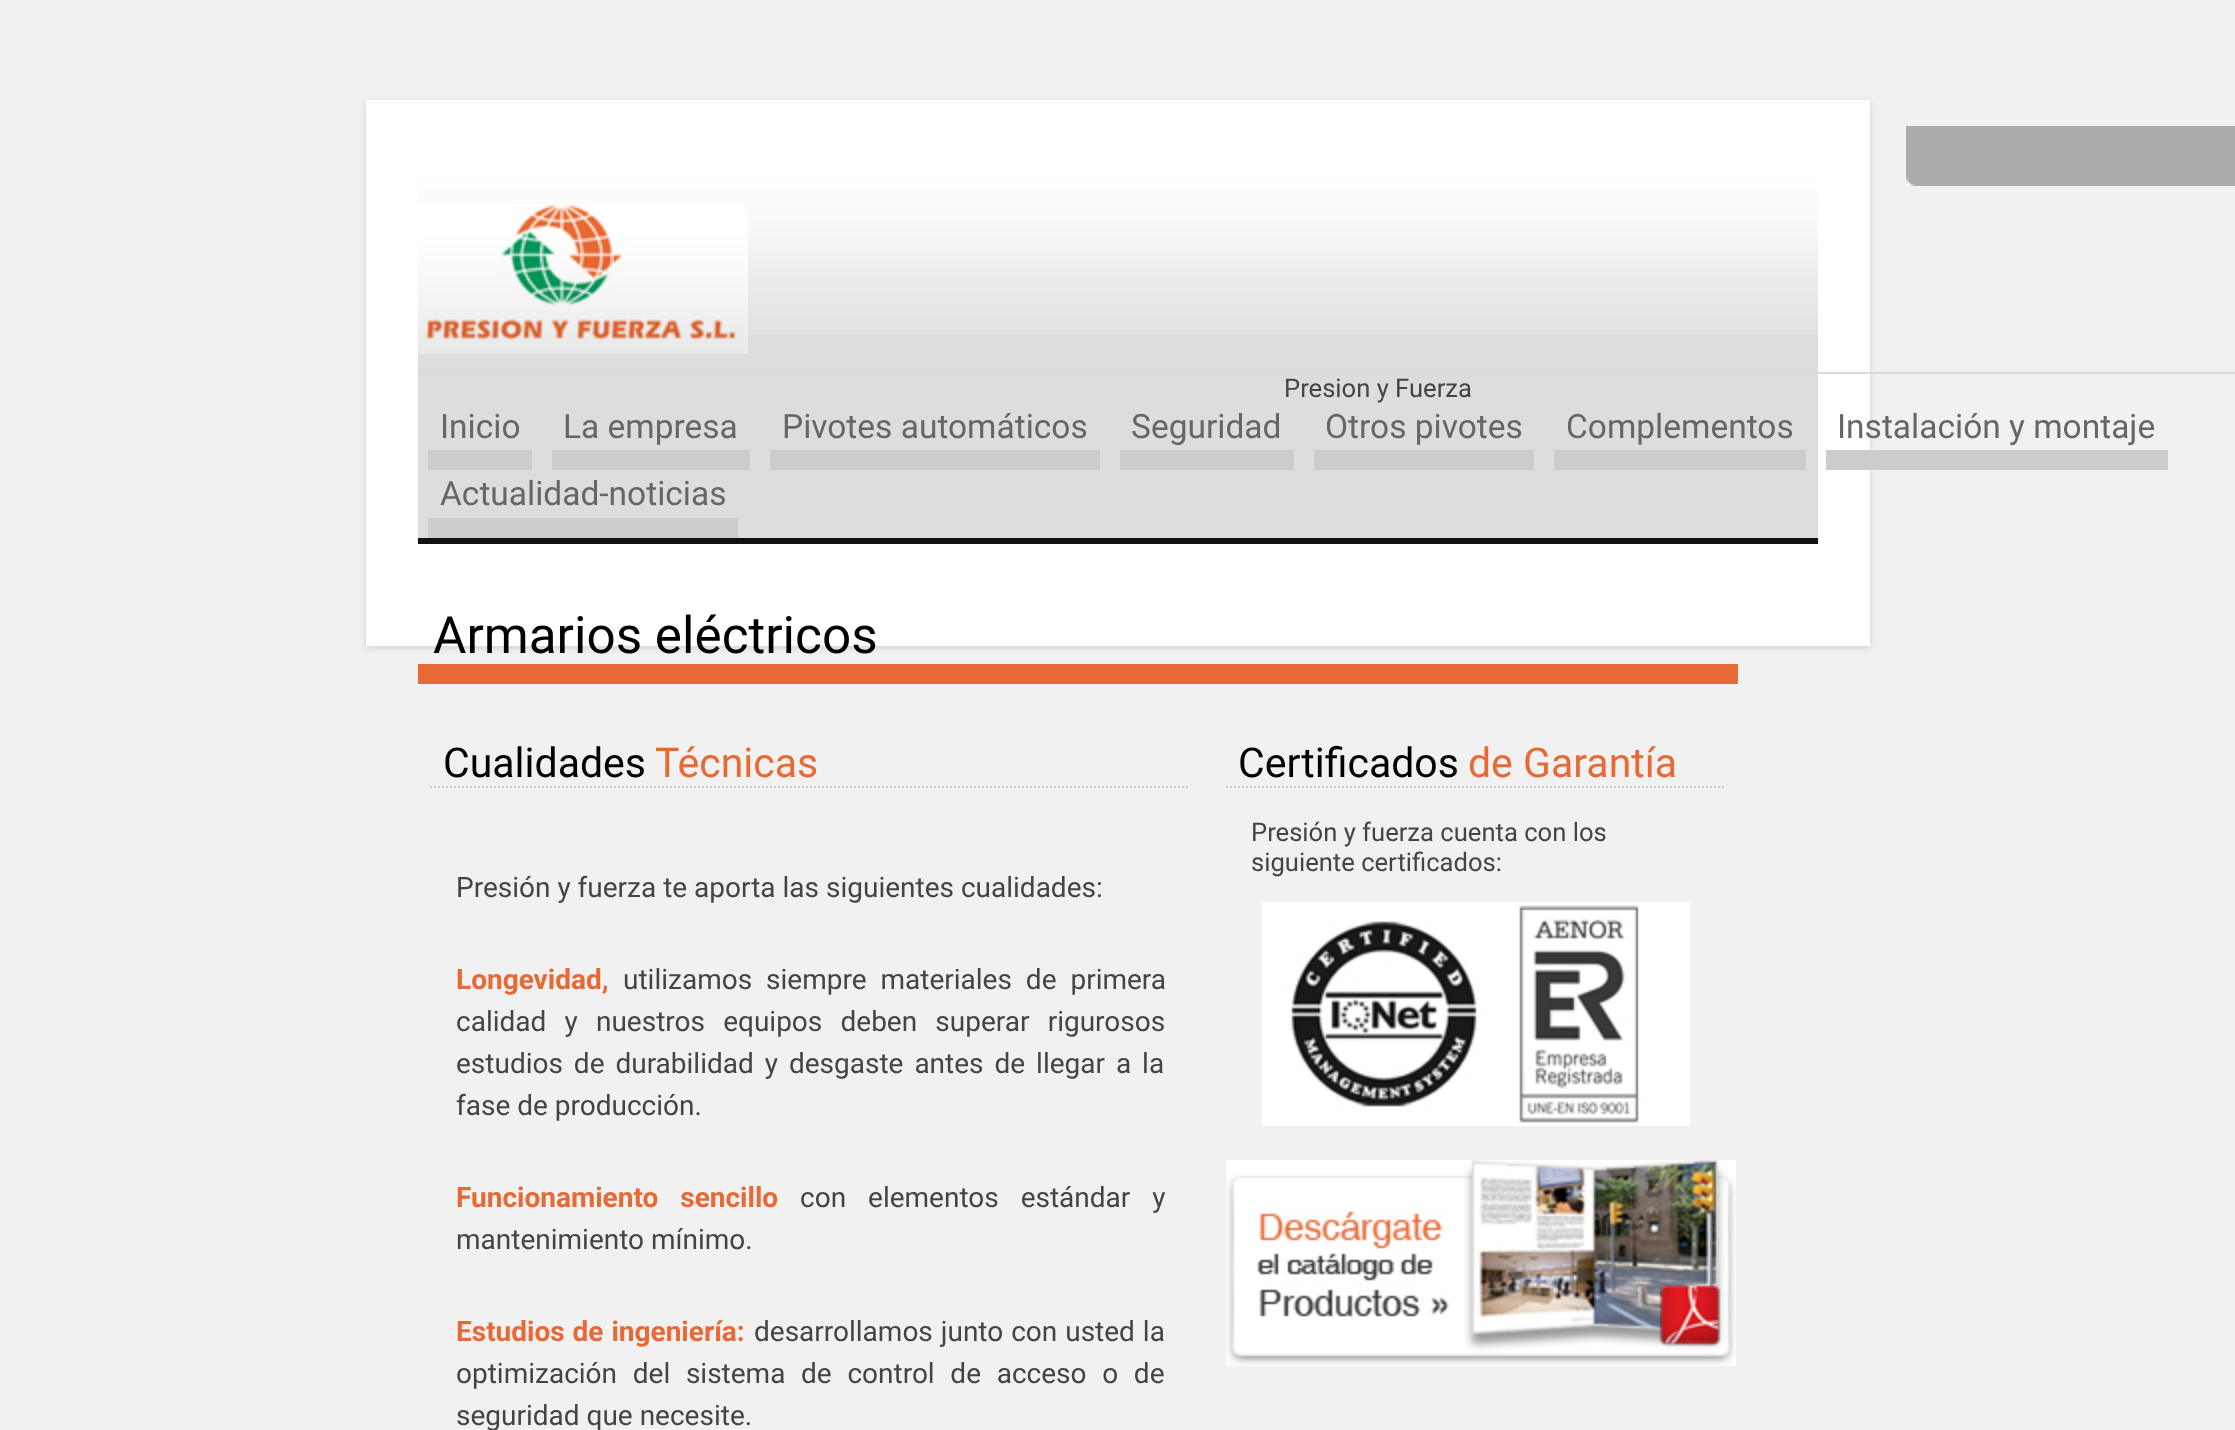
<!DOCTYPE html>
<meta charset="utf-8">
<style>body { margin: 0 } canvas { display: block }</style>
<canvas id="canvas" width="2235" height="1430"></canvas>
<script type="module">
  const canvas = document.getElementById("canvas");
  const g = canvas.getContext("2d");
  g.miterLimit = 4;
  g.fontKerning = "normal";
  function drawText(s, x, y, [font, color]) {
    g.font = font;
    g.fillStyle = color;
    g.fillText(s, x, y);
  }
  function fillBox(x, y, w, h, color) {
    g.fillStyle = color;
    g.fillRect(x, y, w, h);
  }
  async function drawPicture(src, x, y, w, h) {
    const img = new Image();
    img.src = src;
    await img.decode();
    g.drawImage(img, x, y, w, h);
  }

  const s1 = ["25.6px Roboto", "#444444"];
  const s2 = ["33.5px Roboto", "#666666"];
  const s3 = ["51.25px Roboto", "#000000"];
  const s4 = ["41px Roboto", "#000000"];
  const s5 = ["41px Roboto", "#E76935"];
  const s6 = ["28px Roboto", "#444444"];
  const s7 = ["bold 28px Roboto", "#E76935"];

  fillBox(0, 0, 2235, 1430, "#F1F1F1");
  g.fillStyle = "rgba(0, 0, 0, 0.13)";
  g.filter = "blur(3px)";
  g.beginPath();
  g.rect(366, 102, 1504, 546);
  g.fill();
  g.filter = "none";
  fillBox(366, 100, 1504, 546, "#FFFFFF");
  fillBox(418, 334, 1400, 204, "#DDDDDD");
  await drawPicture("pic1.png", 418, 126, 1400, 208);
  fillBox(418, 538, 1400, 6, "#111111");
  await drawPicture("pic2.png", 1906, 126, 329, 60);
  fillBox(418, 372, 1817, 2, "#DADADA");
  await drawPicture("pic3.png", 418, 204, 330, 150);
  drawText("Presion y Fuerza", 1284, 397, s1);
  fillBox(428, 450, 104, 20, "#CCCCCC");
  drawText("Inicio", 440, 438, s2);
  fillBox(552, 450, 198, 20, "#CCCCCC");
  drawText("La empresa", 563, 438, s2);
  fillBox(770, 450, 330, 20, "#CCCCCC");
  drawText("Pivotes automáticos", 782, 438, s2);
  fillBox(1120, 450, 174, 20, "#CCCCCC");
  drawText("Seguridad", 1131, 438, s2);
  fillBox(1314, 450, 220, 20, "#CCCCCC");
  drawText("Otros pivotes", 1325, 438, s2);
  fillBox(1554, 450, 252, 20, "#CCCCCC");
  drawText("Complementos", 1566, 438, s2);
  fillBox(1826, 450, 342, 20, "#CCCCCC");
  drawText("Instalación y montaje", 1837, 438, s2);
  fillBox(428, 518, 310, 20, "#CCCCCC");
  drawText("Actualidad-noticias", 440, 505, s2);
  fillBox(418, 664, 1320, 20, "#E76935");
  drawText("Armarios eléctricos", 433, 653, s3);
  g.beginPath();
  g.moveTo(430, 787);
  g.lineTo(1190, 787);
  g.strokeStyle = "#CCCCCC";
  g.lineWidth = 2;
  g.setLineDash([2, 2]);
  g.stroke();
  drawText("Cualidades", 443, 777, s4);
  drawText("Técnicas", 655, 777, s5);
  drawText("Presión y fuerza te aporta las siguientes cualidades:", 456, 897, s6);
  drawText("Longevidad,", 456, 989, s7);
  g.wordSpacing = "7px";
  drawText("utilizamos siempre materiales de primera", 623, 989, s6);
  g.wordSpacing = "11.25px";
  drawText("calidad y nuestros equipos deben superar rigurosos", 456, 1031, s6);
  g.wordSpacing = "4px";
  drawText("estudios de durabilidad y desgaste antes de llegar a la", 456, 1073, s6);
  g.wordSpacing = "0px";
  drawText("fase de producción.", 456, 1115, s6);
  g.wordSpacing = "15px";
  drawText("Funcionamiento sencillo", 456, 1207, s7);
  drawText("con elementos estándar y", 800, 1207, s6);
  g.wordSpacing = "0px";
  drawText("mantenimiento mínimo.", 456, 1249, s6);
  g.wordSpacing = "1px";
  drawText("Estudios de ingeniería:", 456, 1341, s7);
  drawText("desarrollamos junto con usted la", 754, 1341, s6);
  g.wordSpacing = "8.75px";
  drawText("optimización del sistema de control de acceso o de", 456, 1383, s6);
  g.wordSpacing = "0px";
  drawText("seguridad que necesite.", 456, 1425, s6);
  g.beginPath();
  g.moveTo(1226, 787);
  g.lineTo(1726, 787);
  g.stroke();
  drawText("Certificados", 1238, 777, s4);
  drawText("de Garantía", 1468, 777, s5);
  drawText("Presión y fuerza cuenta con los", 1251, 841, s1);
  drawText("siguiente certificados:", 1251, 871, s1);
  await drawPicture("pic4.png", 1262, 902, 428, 224);
  await drawPicture("pic5.png", 1226, 1160, 510, 206);
</script>
